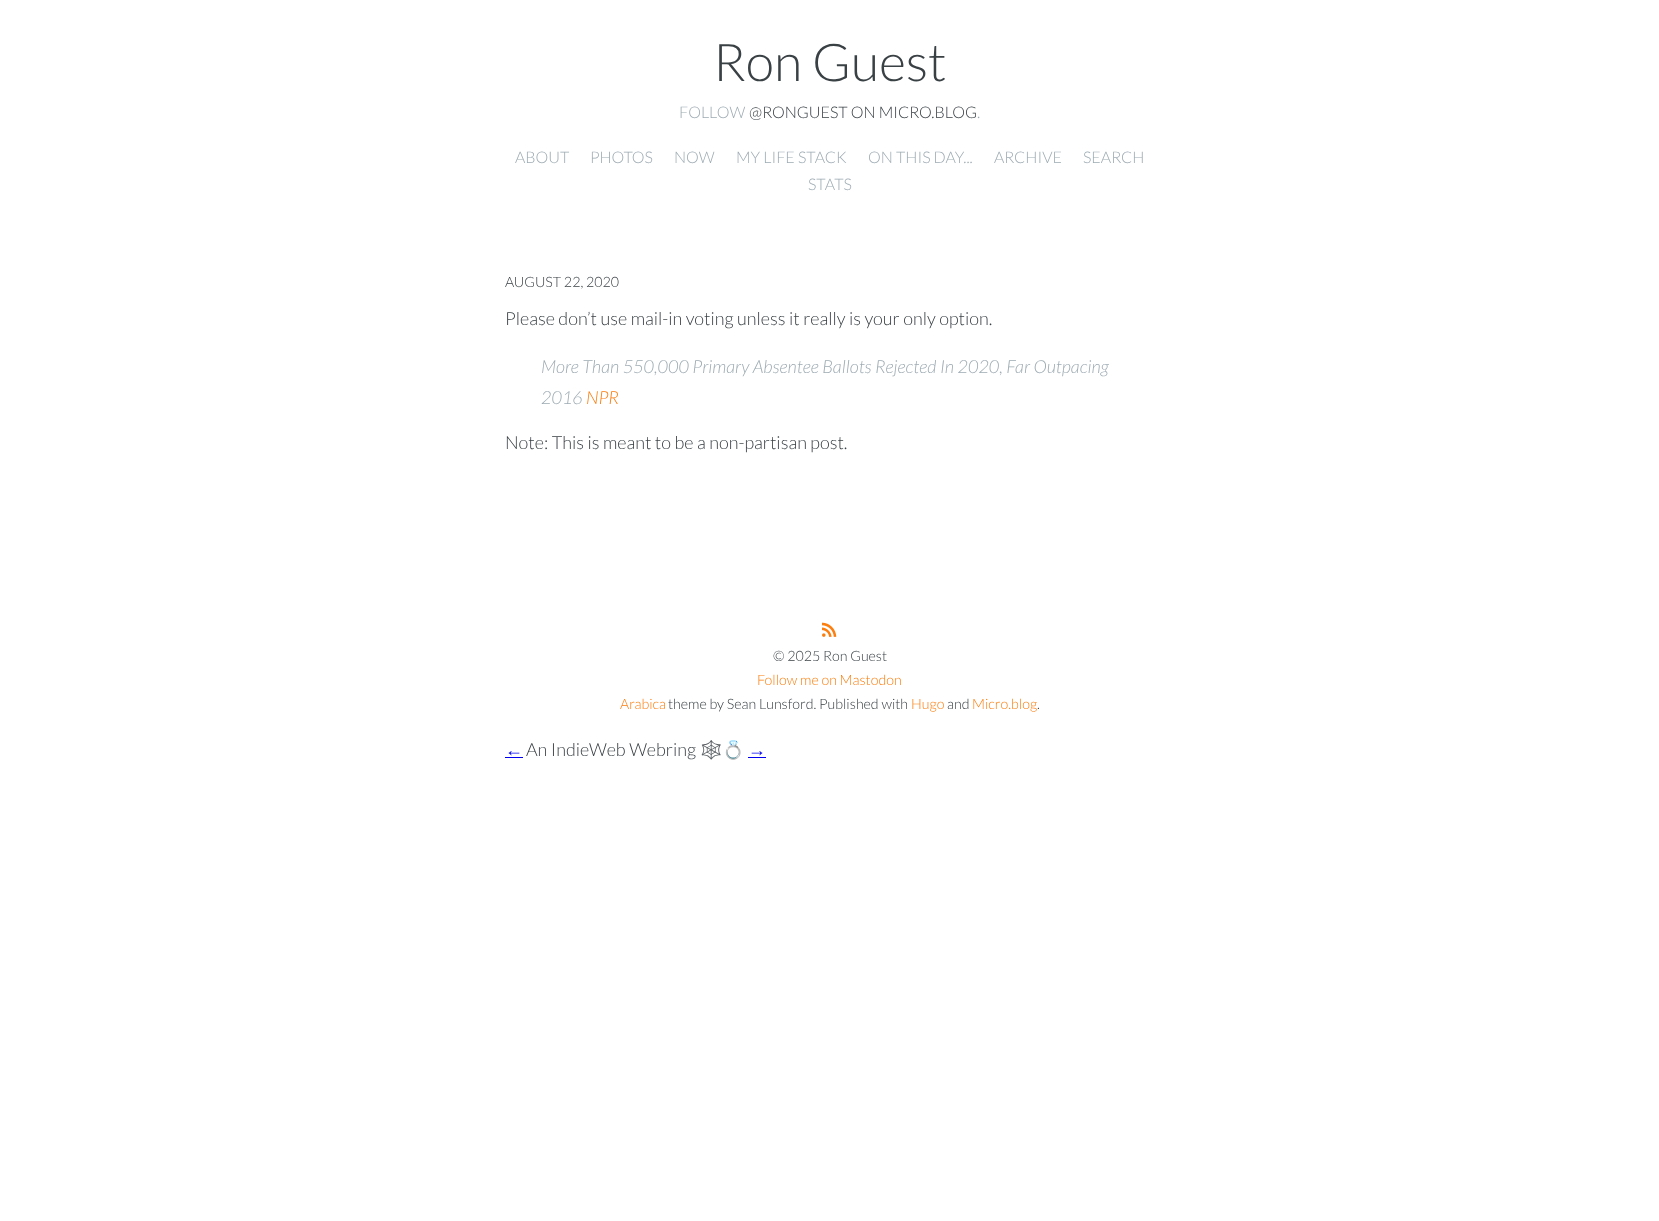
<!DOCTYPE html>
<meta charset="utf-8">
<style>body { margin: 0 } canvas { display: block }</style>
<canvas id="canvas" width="1659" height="1221"></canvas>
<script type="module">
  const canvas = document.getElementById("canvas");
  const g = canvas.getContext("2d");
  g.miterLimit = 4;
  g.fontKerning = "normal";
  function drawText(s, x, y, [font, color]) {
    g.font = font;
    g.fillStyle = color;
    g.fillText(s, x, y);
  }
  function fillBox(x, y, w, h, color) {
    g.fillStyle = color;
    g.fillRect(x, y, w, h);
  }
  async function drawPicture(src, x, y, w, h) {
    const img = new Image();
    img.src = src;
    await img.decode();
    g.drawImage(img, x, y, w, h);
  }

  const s1 = ["300 52px Lato", "#3A4145"];
  const s2 = ["300 16px Lato", "#9EABB3"];
  const s3 = ["300 16px Lato", "#3A4145"];
  const s4 = ["300 14.25px Lato", "#3A4145"];
  const s5 = ["300 18px Lato", "#3A4145"];
  const s6 = ["italic 300 18px Lato", "#9EABB3"];
  const s7 = ["italic 300 18px Lato", "#FC7E0F"];
  const s8 = ["300 14.25px Lato", "#FC7E0F"];
  const s9 = ["18px Liberation Sans", "#0000EE"];
  const s10 = ["18px Noto Color Emoji", "#3A4145"];

  fillBox(0, 0, 1659, 1221, "#FFFFFF");
  drawText("Ron Guest", 713, 81, s1);
  drawText("FOLLOW", 679, 118, s2);
  drawText("@RONGUEST ON MICRO.BLOG", 749, 118, s3);
  drawText(".", 977, 118, s2);
  drawText("ABOUT", 515, 163, s2);
  drawText("PHOTOS", 590, 163, s2);
  drawText("NOW", 674, 163, s2);
  drawText("MY LIFE STACK", 736, 163, s2);
  drawText("ON THIS DAY...", 868, 163, s2);
  drawText("ARCHIVE", 994, 163, s2);
  drawText("SEARCH", 1083, 163, s2);
  drawText("STATS", 808, 190, s2);
  drawText("AUGUST 22, 2020", 505, 287, s4);
  drawText("Please don’t use mail-in voting unless it really is your only option.", 505, 325, s5);
  drawText("More Than 550,000 Primary Absentee Ballots Rejected In 2020, Far Outpacing", 541, 373, s6);
  drawText("2016", 541, 404, s6);
  drawText("NPR", 586, 404, s7);
  drawText("Note: This is meant to be a non-partisan post.", 505, 449, s5);
  await drawPicture("pic1.png", 822, 622, 15, 15);
  drawText("© 2025 Ron Guest", 773, 661, s4);
  drawText("Follow me on Mastodon", 757, 685, s8);
  drawText("Arabica", 620, 709, s8);
  drawText("theme by Sean Lunsford. Published with", 668, 709, s4);
  drawText("Hugo", 911, 709, s8);
  drawText("and", 947, 709, s4);
  drawText("Micro.blog", 972, 709, s8);
  drawText(".", 1037, 709, s4);
  drawText("←", 505, 756, s9);
  fillBox(505, 757, 18, 1, "#0000EE");
  drawText("An IndieWeb Webring", 526, 756, s5);
  drawText("🕸💍", 700, 756, s10);
  drawText("→", 748, 756, s9);
  fillBox(748, 757, 18, 1, "#0000EE");
</script>
